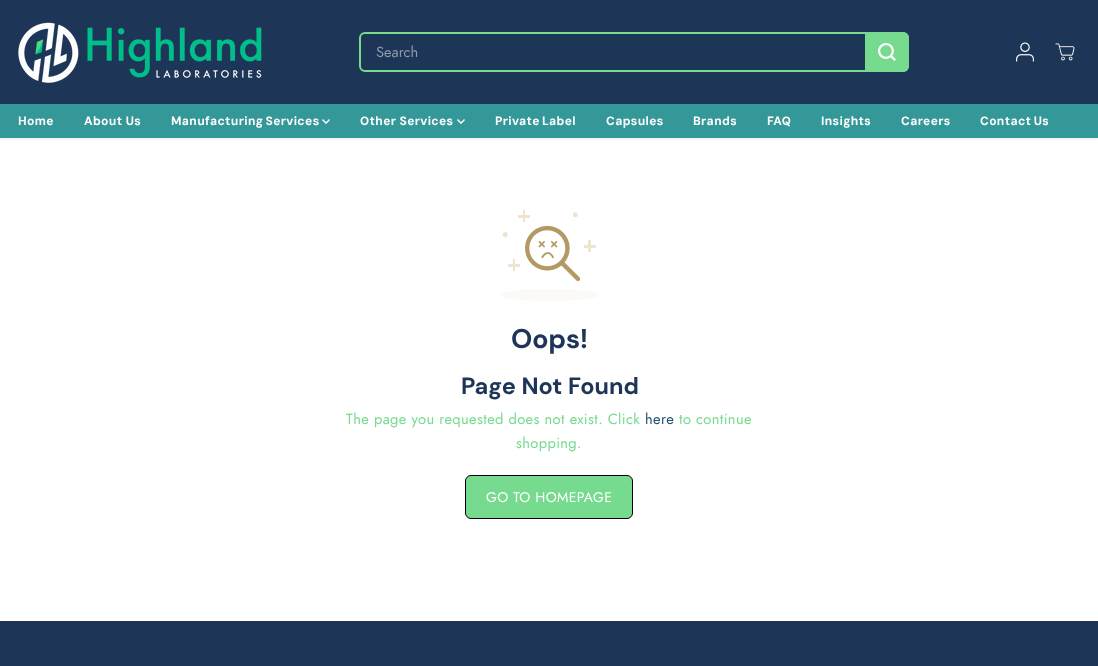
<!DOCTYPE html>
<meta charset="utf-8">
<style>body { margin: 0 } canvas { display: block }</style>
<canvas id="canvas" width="1098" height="666"></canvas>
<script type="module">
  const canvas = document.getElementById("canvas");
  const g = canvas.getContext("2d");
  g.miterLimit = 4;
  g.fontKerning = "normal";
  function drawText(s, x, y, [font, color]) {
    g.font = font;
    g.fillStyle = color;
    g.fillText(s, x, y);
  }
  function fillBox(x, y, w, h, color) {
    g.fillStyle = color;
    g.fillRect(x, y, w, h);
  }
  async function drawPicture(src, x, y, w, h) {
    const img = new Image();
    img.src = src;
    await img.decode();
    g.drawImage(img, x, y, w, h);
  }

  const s1 = ["14.7px Jost", "#8E9AAB"];
  const s2 = ["bold 12px 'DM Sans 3'", "#FFFFFF"];
  const s3 = ["bold 27px DM Sans", "#1D3557"];
  const s4 = ["bold 23.5px 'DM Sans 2'", "#1D3557"];
  const s5 = ["14.7px Jost", "#76DB8F"];
  const s6 = ["14.7px Jost", "#1F4F6F"];
  const s7 = ["14px Jost", "#FFFFFF"];

  fillBox(0, 0, 1098, 666, "#FFFFFF");
  fillBox(0, 0, 1098, 104, "#1D3557");
  g.save();
  g.beginPath();
  g.rect(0, 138, 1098, 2);
  g.clip();
  g.fillStyle = "rgba(0, 0, 0, 0.05)";
  g.filter = "blur(1px)";
  g.beginPath();
  g.rect(0, 2, 1098, 138);
  g.fill();
  g.filter = "none";
  g.restore();
  await drawPicture("pic1.png", 18, 22, 244, 61);
  g.beginPath();
  g.roundRect(360, 33, 548, 38, 5);
  g.strokeStyle = "#76DB8F";
  g.lineWidth = 2;
  g.stroke();
  drawText("Search", 376, 57, s1);
  g.fillStyle = "#76DB8F";
  g.beginPath();
  g.roundRect(865, 32, 44, 40, [0, 6, 6, 0]);
  g.fill();
  await drawPicture("pic2.png", 878, 43, 18, 18);
  await drawPicture("pic3.png", 1016, 42, 18, 20);
  await drawPicture("pic4.png", 1055, 43, 20, 18);
  fillBox(0, 104, 1098, 34, "#349798");
  g.letterSpacing = "0.35px";
  drawText("Home", 18, 125, s2);
  drawText("About Us", 84, 125, s2);
  g.wordSpacing = "-1px";
  drawText("Manufacturing Services", 171, 125, s2);
  await drawPicture("pic5.png", 322, 119, 8, 5);
  g.wordSpacing = "0px";
  drawText("Other Services", 360, 125, s2);
  await drawPicture("pic5.png", 457, 119, 8, 5);
  g.wordSpacing = "-1px";
  drawText("Private Label", 495, 125, s2);
  g.wordSpacing = "0px";
  drawText("Capsules", 606, 125, s2);
  drawText("Brands", 693, 125, s2);
  drawText("FAQ", 767, 125, s2);
  drawText("Insights", 821, 125, s2);
  drawText("Careers", 901, 125, s2);
  g.wordSpacing = "-1px";
  drawText("Contact Us", 980, 125, s2);
  await drawPicture("pic6.png", 499, 210, 100, 91);
  g.letterSpacing = "0px";
  g.wordSpacing = "0px";
  drawText("Oops!", 511, 348, s3);
  drawText("Page Not Found", 461, 394, s4);
  g.letterSpacing = "0.35px";
  drawText("The page you requested does not exist. Click", 346, 424, s5);
  drawText("here", 645, 424, s6);
  drawText("to continue", 679, 424, s5);
  drawText("shopping.", 516, 448, s5);
  g.beginPath();
  g.roundRect(465.5, 475.5, 167, 43, 5.5);
  g.fill();
  g.strokeStyle = "#000000";
  g.lineWidth = 1;
  g.stroke();
  drawText("GO TO HOMEPAGE", 486, 502, s7);
  fillBox(0, 621, 1098, 45, "#1D3557");
</script>
